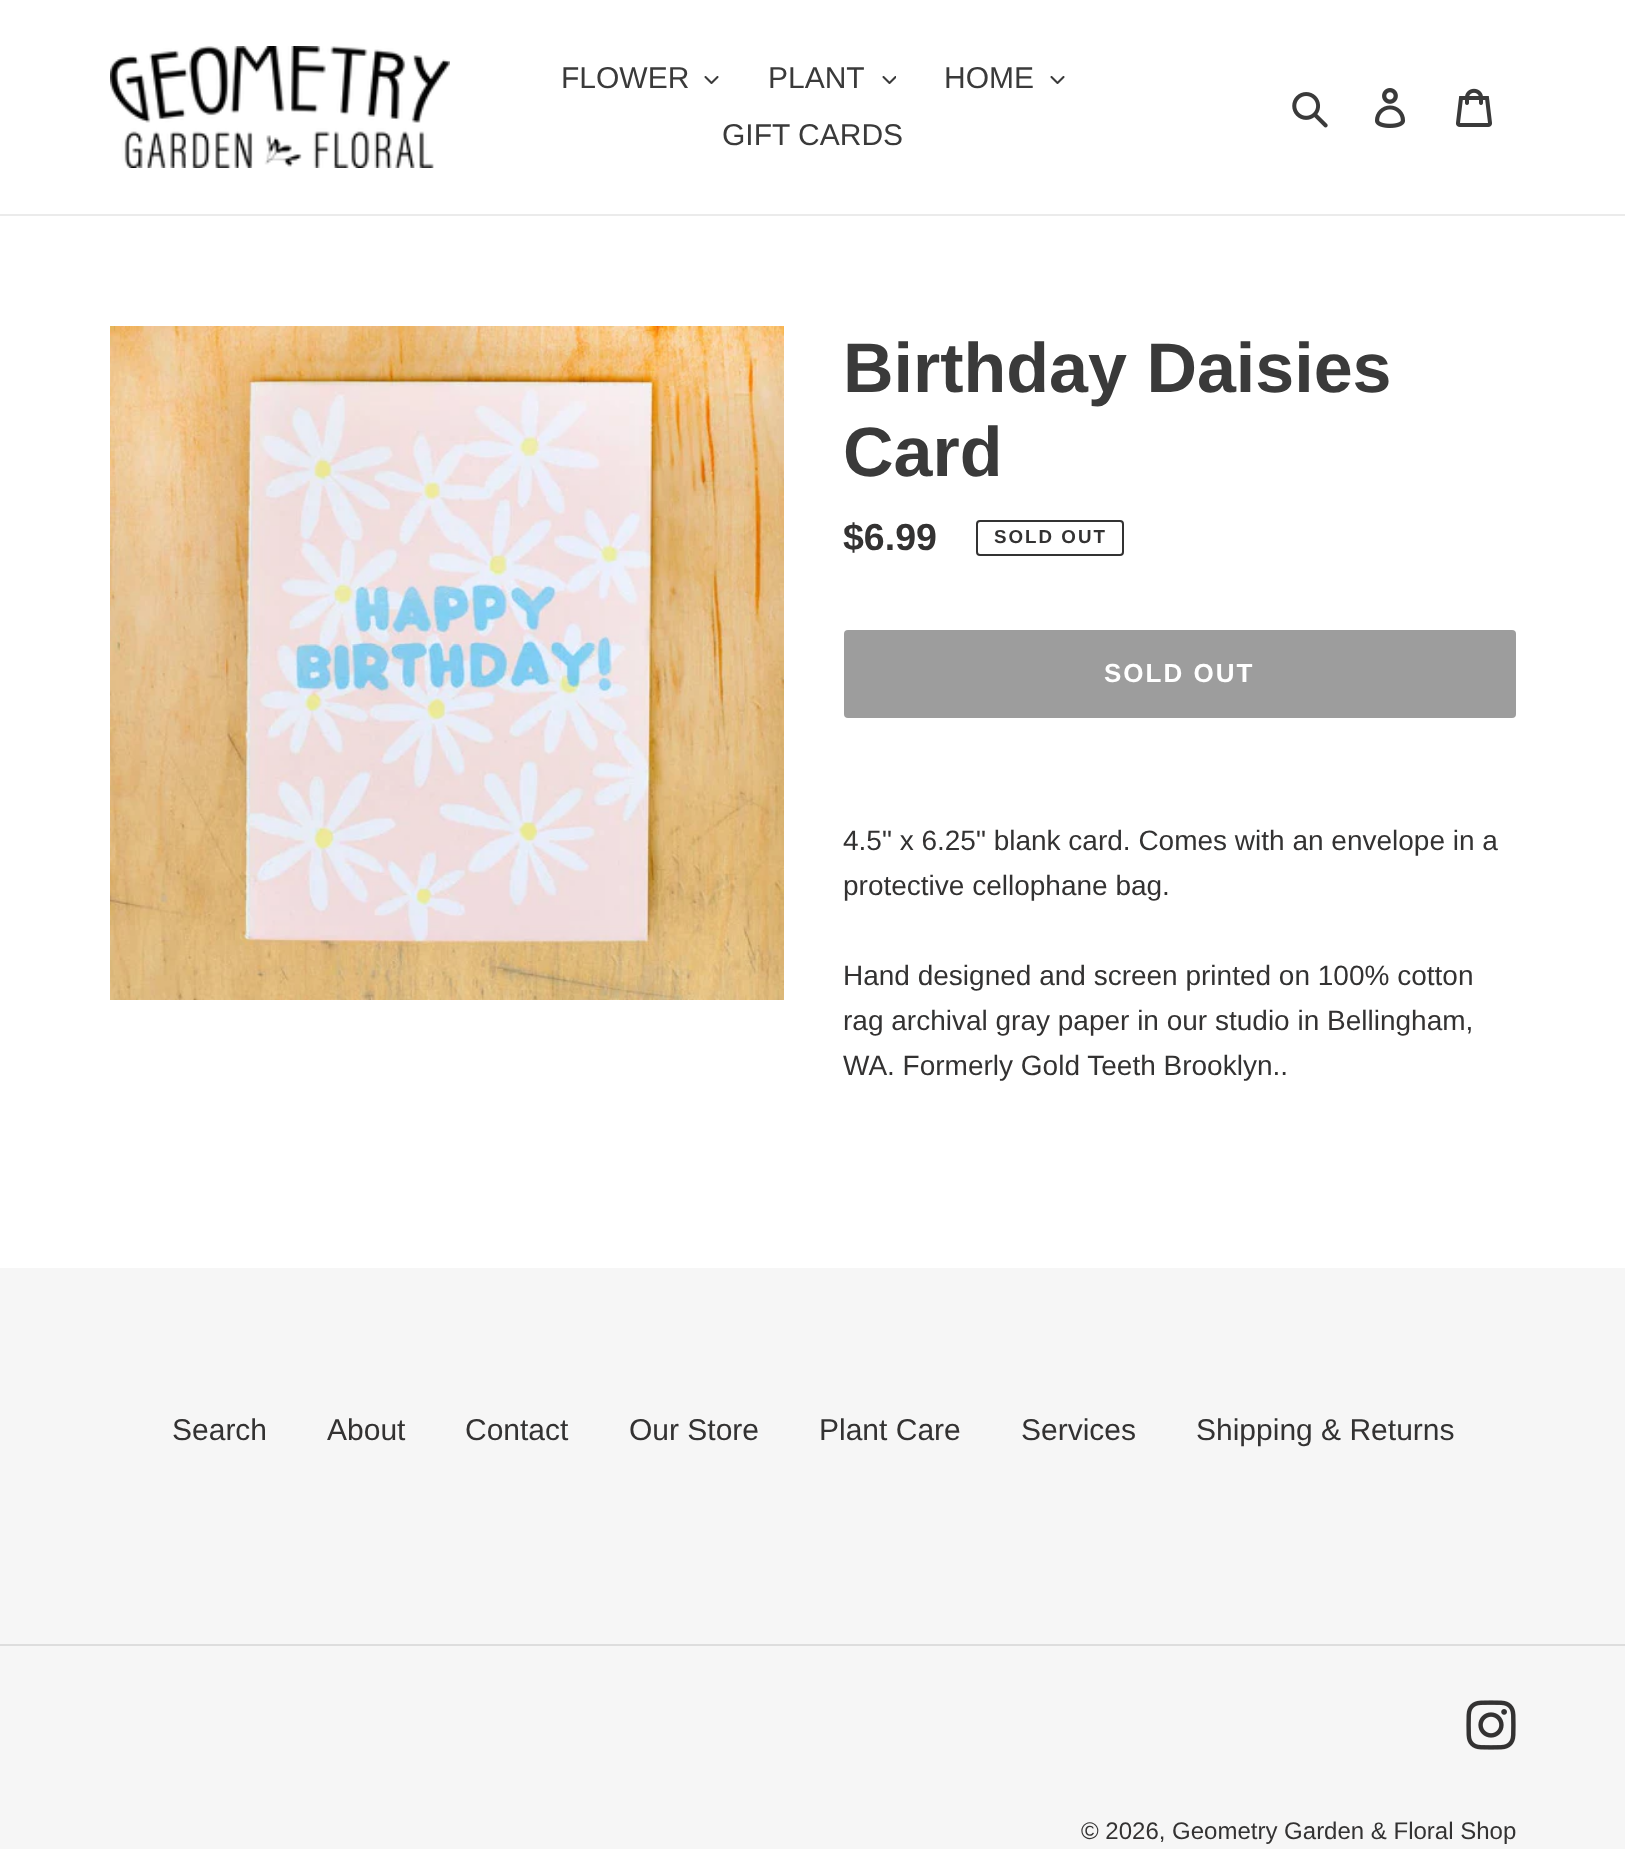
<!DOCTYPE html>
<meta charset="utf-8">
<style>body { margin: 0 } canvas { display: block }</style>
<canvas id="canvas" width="1625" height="1849"></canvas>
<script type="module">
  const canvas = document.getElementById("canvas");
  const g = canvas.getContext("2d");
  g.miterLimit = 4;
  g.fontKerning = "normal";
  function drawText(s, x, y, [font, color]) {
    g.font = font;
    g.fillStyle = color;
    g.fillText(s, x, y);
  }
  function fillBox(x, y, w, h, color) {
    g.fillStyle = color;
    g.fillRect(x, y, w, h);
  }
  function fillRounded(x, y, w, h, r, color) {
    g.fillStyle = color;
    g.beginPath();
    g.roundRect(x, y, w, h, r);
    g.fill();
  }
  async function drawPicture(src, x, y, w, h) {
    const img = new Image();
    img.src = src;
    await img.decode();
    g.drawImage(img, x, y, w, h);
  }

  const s1 = ["30px Liberation Sans", "#3A3A3A"];
  const s2 = ["bold 70px Liberation Sans", "#3A3A3A"];
  const s3 = ["bold 37.5px Liberation Sans", "#333232"];
  const s4 = ["bold 18.75px Liberation Sans", "#333232"];
  const s5 = ["bold 26px Liberation Sans", "#FFFFFF"];
  const s6 = ["28px Liberation Sans", "#333232"];
  const s7 = ["30px Liberation Sans", "#333232"];
  const s8 = ["24px Liberation Sans", "#333232"];

  fillBox(0, 0, 1625, 1849, "#FFFFFF");
  fillBox(0, 214, 1625, 2, "#EBEBEB");
  await drawPicture("pic1.png", 110, 46, 340, 122);
  drawText("FLOWER", 561, 88, s1);
  await drawPicture("pic2.png", 704, 76, 15, 8);
  drawText("PLANT", 768, 88, s1);
  await drawPicture("pic3.png", 882, 76, 14, 8);
  drawText("HOME", 944, 88, s1);
  await drawPicture("pic2.png", 1050, 76, 15, 8);
  drawText("GIFT CARDS", 722, 145, s1);
  await drawPicture("pic4.png", 1292, 92, 36, 36);
  await drawPicture("pic5.png", 1375, 88, 31, 40);
  await drawPicture("pic6.png", 1456, 88, 36, 39);
  await drawPicture("pic7.png", 110, 326, 674, 674);
  drawText("Birthday Daisies", 843, 392, s2);
  drawText("Card", 843, 476, s2);
  drawText("$6.99", 843, 550, s3);
  g.beginPath();
  g.roundRect(977, 521, 146, 34, 3);
  g.strokeStyle = "#333232";
  g.lineWidth = 2;
  g.stroke();
  g.letterSpacing = "2px";
  drawText("SOLD OUT", 994, 543, s4);
  fillRounded(844, 630, 672, 88, 4, "#9D9D9D");
  drawText("SOLD OUT", 1104, 682, s5);
  g.letterSpacing = "0px";
  drawText("4.5\" x 6.25\" blank card. Comes with an envelope in a", 843, 850, s6);
  drawText("protective cellophane bag.", 843, 895, s6);
  drawText("Hand designed and screen printed on 100% cotton", 843, 985, s6);
  drawText("rag archival gray paper in our studio in Bellingham,", 843, 1030, s6);
  drawText("WA. Formerly Gold Teeth Brooklyn..", 843, 1075, s6);
  fillBox(0, 1268, 1625, 581, "#F6F6F6");
  drawText("Search", 172, 1440, s7);
  drawText("About", 327, 1440, s7);
  drawText("Contact", 465, 1440, s7);
  drawText("Our Store", 629, 1440, s7);
  drawText("Plant Care", 819, 1440, s7);
  drawText("Services", 1021, 1440, s7);
  drawText("Shipping & Returns", 1196, 1440, s7);
  fillBox(0, 1644, 1625, 2, "#DDDDDD");
  await drawPicture("pic8.png", 1466, 1700, 50, 50);
  drawText("© 2026, Geometry Garden & Floral Shop", 1081, 1839, s8);
</script>
